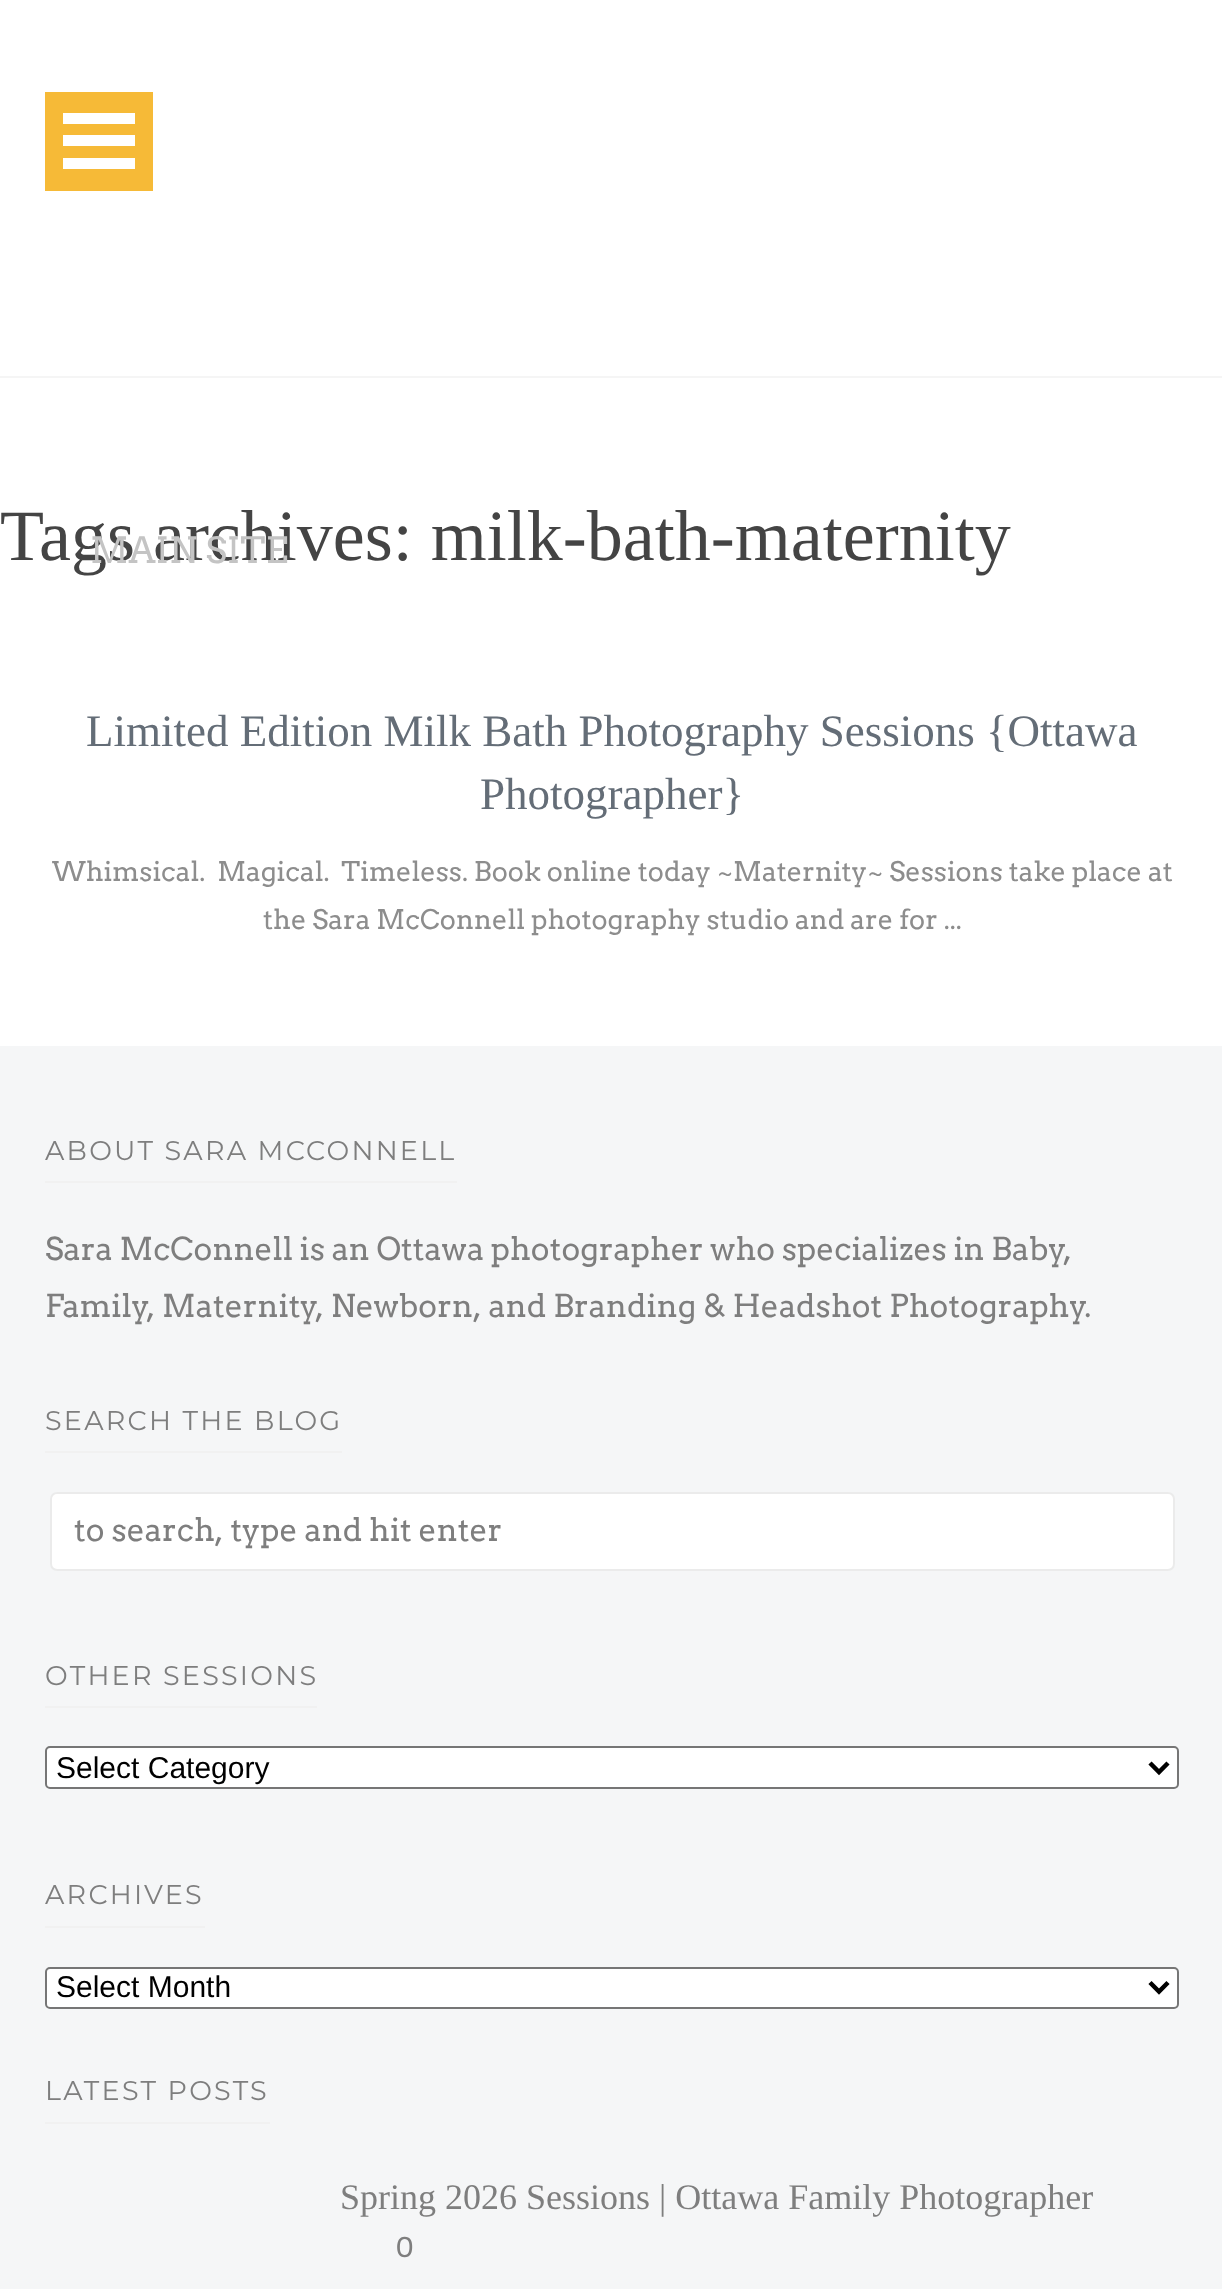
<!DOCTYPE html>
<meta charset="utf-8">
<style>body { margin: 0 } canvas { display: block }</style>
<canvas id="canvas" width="1222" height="2289"></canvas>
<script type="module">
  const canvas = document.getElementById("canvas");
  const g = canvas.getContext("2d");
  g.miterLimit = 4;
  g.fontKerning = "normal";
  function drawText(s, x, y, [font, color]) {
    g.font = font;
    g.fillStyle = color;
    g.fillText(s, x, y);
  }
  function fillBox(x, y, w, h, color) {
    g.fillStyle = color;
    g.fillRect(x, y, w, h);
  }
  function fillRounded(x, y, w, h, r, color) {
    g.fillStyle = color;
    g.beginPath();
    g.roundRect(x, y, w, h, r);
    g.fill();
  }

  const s1 = ["72px Liberation Serif", "#444444"];
  const s2 = ["45px Liberation Serif", "#646D77"];
  const s3 = ["27px Arvo", "#8D8D8D"];
  const s4 = ["36px Arvo", "#C4C4C4"];
  const s5 = ["27px Montserrat", "#7E7E7E"];
  const s6 = ["31.5px Arvo", "#7E7E7E"];
  const s7 = ["30px Liberation Sans", "#000000"];
  const s8 = ["36px Liberation Serif", "#7E7E7E"];
  const s9 = ["27px Arvo", "#7E7E7E"];

  fillBox(0, 0, 1222, 2289, "#FFFFFF");
  drawText("Tags archives: milk-bath-maternity", 0, 560, s1);
  drawText("Limited Edition Milk Bath Photography Sessions {Ottawa", 86, 746, s2);
  drawText("Photographer}", 480, 809, s2);
  drawText("Whimsical.  Magical.  Timeless. Book online today ~Maternity~ Sessions take place at", 52, 881, s3);
  drawText("the Sara McConnell photography studio and are for ...", 263, 929, s3);
  fillBox(0, 376, 1222, 2, "#F5F5F5");
  fillBox(45, 92, 108, 99, "#F6BA37");
  fillBox(63, 158, 72, 11, "#FFFFFF");
  fillBox(63, 135, 72, 11, "#FFFFFF");
  fillBox(63, 113, 72, 11, "#FFFFFF");
  drawText("MAIN SITE", 90, 563, s4);
  fillBox(0, 1046, 1222, 1243, "#F5F6F7");
  fillBox(45, 1181, 412, 2, "#F1F1F1");
  g.letterSpacing = "2.25px";
  drawText("ABOUT SARA MCCONNELL", 45, 1160, s5);
  g.letterSpacing = "0px";
  g.wordSpacing = "-0.25px";
  drawText("Sara McConnell is an Ottawa photographer who specializes in Baby,", 45, 1260, s6);
  g.wordSpacing = "0px";
  drawText("Family, Maternity, Newborn, and Branding & Headshot Photography.", 45, 1317, s6);
  fillBox(45, 1451, 297, 2, "#F1F1F1");
  g.letterSpacing = "2.25px";
  drawText("SEARCH THE BLOG", 45, 1430, s5);
  fillRounded(50, 1492, 1125, 79, 7, "#FFFFFF");
  g.beginPath();
  g.roundRect(51, 1493, 1123, 77, 6);
  g.strokeStyle = "rgba(60, 60, 60, 0.1)";
  g.lineWidth = 2;
  g.stroke();
  g.letterSpacing = "0px";
  drawText("to search, type and hit enter", 74, 1541, s6);
  fillBox(45, 1706, 272, 2, "#F1F1F1");
  g.letterSpacing = "2.25px";
  drawText("OTHER SESSIONS", 45, 1685, s5);
  g.fillStyle = "#FFFFFF";
  g.beginPath();
  g.roundRect(46, 1747, 1132, 41, 4);
  g.fill();
  g.strokeStyle = "#767676";
  g.stroke();
  g.beginPath();
  g.moveTo(1150, 1763);
  g.lineTo(1159, 1772);
  g.lineTo(1168, 1763);
  g.strokeStyle = "#000000";
  g.lineWidth = 4.5;
  g.stroke();
  g.letterSpacing = "0px";
  drawText("Select Category", 56, 1778, s7);
  fillBox(45, 1926, 160, 2, "#F1F1F1");
  g.letterSpacing = "2.25px";
  drawText("ARCHIVES", 45, 1904, s5);
  g.fillStyle = "#FFFFFF";
  g.beginPath();
  g.roundRect(46, 1968, 1132, 40, 4);
  g.fill();
  g.strokeStyle = "#767676";
  g.lineWidth = 2;
  g.stroke();
  g.beginPath();
  g.moveTo(1150, 1982.5);
  g.lineTo(1159, 1991.5);
  g.lineTo(1168, 1982.5);
  g.strokeStyle = "#000000";
  g.lineWidth = 4.5;
  g.stroke();
  g.letterSpacing = "0px";
  drawText("Select Month", 56, 1997, s7);
  fillBox(45, 2122, 225, 2, "#F1F1F1");
  g.letterSpacing = "2.25px";
  drawText("LATEST POSTS", 45, 2100, s5);
  g.letterSpacing = "0px";
  drawText("Spring 2026 Sessions | Ottawa Family Photographer", 340, 2209, s8);
  drawText("0", 396, 2257, s9);
</script>
